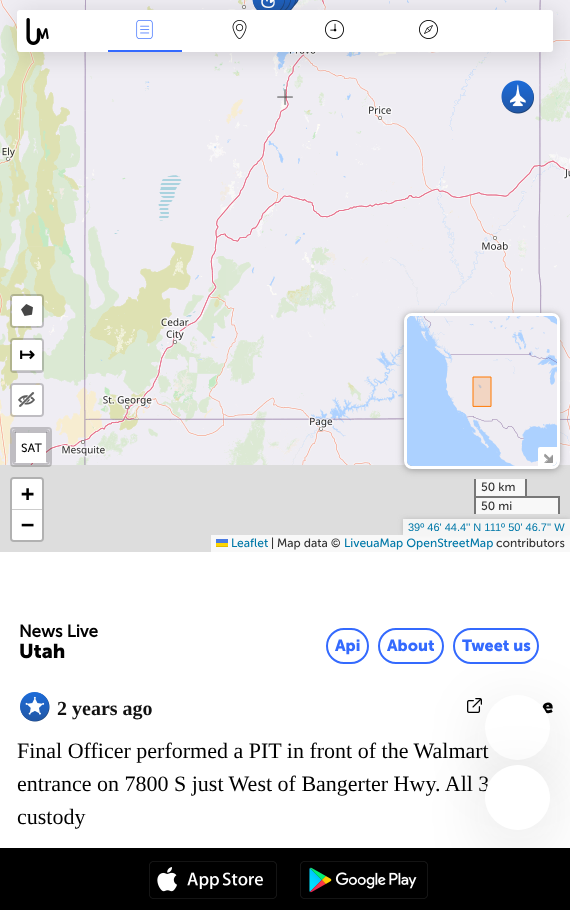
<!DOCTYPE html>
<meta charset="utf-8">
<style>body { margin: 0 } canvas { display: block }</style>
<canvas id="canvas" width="570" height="910"></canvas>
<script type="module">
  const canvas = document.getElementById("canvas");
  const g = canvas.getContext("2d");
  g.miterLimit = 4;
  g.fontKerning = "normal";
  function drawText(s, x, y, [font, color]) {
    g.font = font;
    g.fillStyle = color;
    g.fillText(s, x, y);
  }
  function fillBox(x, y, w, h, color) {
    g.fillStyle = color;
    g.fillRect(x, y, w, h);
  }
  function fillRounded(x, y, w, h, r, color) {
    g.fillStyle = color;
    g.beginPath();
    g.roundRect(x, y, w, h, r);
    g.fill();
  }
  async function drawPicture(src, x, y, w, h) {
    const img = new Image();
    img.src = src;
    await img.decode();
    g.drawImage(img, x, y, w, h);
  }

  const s1 = ["bold 19px DejaVu Sans", "#000000"];
  const s2 = ["12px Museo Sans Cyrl", "#000000"];
  const s3 = ["bold 22px DejaVu Sans Mono", "#000000"];
  const s4 = ["12px Museo Sans Cyrl", "#333333"];
  const s5 = ["11px Liberation Sans", "#0078A8"];
  const s6 = ["12px Museo Sans Cyrl", "#0078A8"];
  const s7 = ["bold 17px Museo Sans Cyrl", "#000000"];
  const s8 = ["bold 20px 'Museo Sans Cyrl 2'", "#000000"];
  const s9 = ["bold 16px 'Museo Sans Cyrl 2'", "#346AFE"];
  const s10 = ["bold 20px Liberation Serif", "#111111"];
  const s11 = ["22px Liberation Serif", "#000000"];

  fillBox(0, 0, 570, 910, "#FFFFFF");
  await drawPicture("pic6.png", 0, 0, 226, 209);
  await drawPicture("pic7.png", 226, 0, 256, 209);
  await drawPicture("pic8.png", 482, 0, 88, 209);
  await drawPicture("pic15.png", 292, 0, 7, 8);
  await drawPicture("pic14.png", 286, 0, 10, 10);
  await drawPicture("pic13.png", 281, 0, 10, 10);
  await drawPicture("pic12.png", 252, 0, 33, 10);
  await drawPicture("pic16.png", 501, 80, 33, 34);
  await drawPicture("pic17.png", 277, 89, 16, 16);
  g.fillStyle = "rgba(16, 15, 15, 0.14)";
  g.filter = "blur(11px)";
  g.beginPath();
  g.roundRect(20, 14, 536, 42, 3);
  g.fill();
  g.filter = "none";
  fillRounded(17, 10, 536, 42, 3, "#FFFFFF");
  await drawPicture("pic1.png", 26, 18, 23, 27);
  fillBox(108, 50, 74, 2, "#346AFE");
  await drawPicture("pic2.png", 136, 20, 17, 19);
  await drawPicture("pic3.png", 232, 20, 15, 19);
  await drawPicture("pic4.png", 325, 20, 19, 19);
  await drawPicture("pic5.png", 419, 20, 19, 19);
  fillBox(0, 465, 570, 87, "#DDDDDD");
  fillBox(476, 498, 82, 16, "#F8F8F8");
  await drawPicture("pic9.png", 0, 209, 226, 256);
  await drawPicture("pic10.png", 226, 209, 256, 256);
  await drawPicture("pic11.png", 482, 209, 88, 256);
  g.beginPath();
  g.roundRect(11, 295, 32, 32, 3);
  g.strokeStyle = "rgba(0, 0, 0, 0.2)";
  g.lineWidth = 2;
  g.stroke();
  fillRounded(12, 296, 30, 30, 2, "#FFFFFF");
  await drawPicture("pic18.png", 21, 304, 12, 12);
  g.beginPath();
  g.roundRect(11, 339, 32, 33, 3);
  g.stroke();
  g.beginPath();
  g.roundRect(12, 340, 30, 31, [2, 2, 0, 0]);
  g.fill();
  fillBox(12, 370, 30, 1, "#CCCCCC");
  drawText("↦", 19, 361, s1);
  g.beginPath();
  g.roundRect(11, 384, 32, 32, 3);
  g.stroke();
  fillRounded(12, 385, 30, 30, 2, "#FFFFFF");
  await drawPicture("pic19.png", 18, 392, 17, 15);
  g.beginPath();
  g.roundRect(11, 428, 40, 38, 3);
  g.stroke();
  g.beginPath();
  g.roundRect(13, 430, 36, 34, 3);
  g.stroke();
  g.beginPath();
  g.moveTo(16, 433);
  g.lineTo(46, 433);
  g.lineTo(46, 463);
  g.lineTo(16, 463);
  g.lineTo(16, 461);
  g.closePath();
  g.fill();
  fillBox(15, 431, 32, 2, "rgba(0, 0, 0, 0.2)");
  fillBox(46, 432, 2, 30, "rgba(0, 0, 0, 0.2)");
  fillBox(14, 432, 2, 30, "rgba(0, 0, 0, 0.2)");
  drawText("SAT", 21, 452, s2);
  g.beginPath();
  g.roundRect(11, 478, 32, 63, 3);
  g.strokeStyle = "#B1B1B1";
  g.stroke();
  g.fillStyle = "#FFFFFF";
  g.beginPath();
  g.roundRect(12, 479, 30, 31, [2, 2, 0, 0]);
  g.fill();
  fillBox(12, 509, 30, 1, "#CCCCCC");
  drawText("+", 21, 501, s3);
  g.fillStyle = "#FFFFFF";
  g.beginPath();
  g.roundRect(12, 510, 30, 30, [0, 0, 2, 2]);
  g.fill();
  drawText("−", 21, 532, s3);
  g.fillStyle = "#999999";
  g.filter = "blur(3.5px)";
  g.beginPath();
  g.roundRect(404, 314, 156, 156, 8);
  g.fill();
  g.filter = "none";
  g.beginPath();
  g.roundRect(405.5, 314.5, 153, 153, 6.5);
  g.strokeStyle = "#FFFFFF";
  g.lineWidth = 3;
  g.stroke();
  await drawPicture("pic20.png", 407, 316, 137, 150);
  await drawPicture("pic21.png", 544, 316, 13, 150);
  fillBox(473, 377, 18, 29, "rgba(255, 120, 0, 0.2)");
  g.beginPath();
  g.moveTo(473, 406);
  g.lineTo(473, 377);
  g.lineTo(491, 377);
  g.lineTo(491, 406);
  g.closePath();
  g.strokeStyle = "#FF7800";
  g.lineWidth = 1;
  g.lineCap = "round";
  g.lineJoin = "round";
  g.stroke();
  g.fillStyle = "#FFFFFF";
  g.beginPath();
  g.roundRect(538, 447, 19, 19, [2, 0, 5, 0]);
  g.fill();
  await drawPicture("pic22.png", 544, 453, 9, 10);
  fillBox(476, 479, 49, 17, "#F8F8F8");
  fillBox(525, 479, 2, 19, "#777777");
  fillBox(474, 479, 2, 19, "#777777");
  drawText("50 km", 481, 491, s4);
  fillBox(474, 496, 86, 2, "#777777");
  fillBox(558, 496, 2, 18, "#777777");
  fillBox(474, 496, 2, 18, "#777777");
  drawText("50 mi", 481, 510, s4);
  g.fillStyle = "#BBBBBB";
  g.filter = "blur(2.5px)";
  g.beginPath();
  g.rect(403, 519, 167, 16);
  g.fill();
  g.filter = "none";
  fillBox(403, 519, 167, 16, "#F5F5F5");
  drawText("39º 46' 44.4'' N 111º 50' 46.7'' W", 408, 531, s5);
  fillBox(211, 535, 359, 17, "rgba(255, 255, 255, 0.8)");
  drawText("Leaflet", 231, 547, s6);
  fillBox(216, 539, 12, 4, "#4C7BE1");
  fillBox(216, 543, 12, 3, "#FFD500");
  fillBox(216, 546, 12, 1, "#E0BC00");
  drawText("| Map data ©", 271, 547, s4);
  drawText("LiveuaMap OpenStreetMap", 344, 547, s6);
  drawText("contributors", 496, 547, s4);
  drawText("News Live", 19, 637, s7);
  drawText("Utah", 19, 658, s8);
  g.beginPath();
  g.roundRect(327, 629, 41, 34, 17);
  g.strokeStyle = "#346AFE";
  g.lineWidth = 2;
  g.lineJoin = "miter";
  g.stroke();
  drawText("Api", 335, 651, s9);
  g.beginPath();
  g.roundRect(379, 629, 64, 34, 17);
  g.stroke();
  drawText("About", 387, 651, s9);
  g.beginPath();
  g.roundRect(454, 629, 84, 34, 17);
  g.stroke();
  drawText("Tweet us", 462, 651, s9);
  await drawPicture("pic23.png", 20, 692, 30, 30);
  drawText("2 years ago", 57, 715, s10);
  await drawPicture("pic24.png", 467, 698, 15, 15);
  drawText("e", 542, 713, s8);
  drawText("Final Officer performed a PIT in front of the Walmart", 17, 758, s11);
  drawText("entrance on 7800 S just West of Bangerter Hwy. All 3", 17, 791, s11);
  drawText("custody", 17, 824, s11);
  fillBox(0, 848, 570, 62, "#000000");
  await drawPicture("pic25.png", 149, 861, 128, 38);
  await drawPicture("pic26.png", 300, 861, 128, 38);
  g.fillStyle = "rgba(16, 15, 15, 0.14)";
  g.filter = "blur(32.5px)";
  g.beginPath();
  g.roundRect(487, 712, 61, 61, 30.5);
  g.fill();
  g.filter = "none";
  g.fillStyle = "#FFFFFF";
  g.beginPath();
  g.arc(517.5, 727.5, 32.5, 0, Math.PI * 2);
  g.fill();
  g.fillStyle = "rgba(16, 15, 15, 0.14)";
  g.filter = "blur(32.5px)";
  g.beginPath();
  g.roundRect(487, 782, 61, 61, 30.5);
  g.fill();
  g.filter = "none";
  g.fillStyle = "#FFFFFF";
  g.beginPath();
  g.moveTo(518, 830);
  g.bezierCurveTo(500, 830, 485, 815, 485, 798);
  g.bezierCurveTo(485, 780, 500, 765, 518, 765);
  g.bezierCurveTo(535, 765, 550, 780, 550, 798);
  g.bezierCurveTo(550, 815, 535, 830, 518, 830);
  g.closePath();
  g.fill();
</script>
